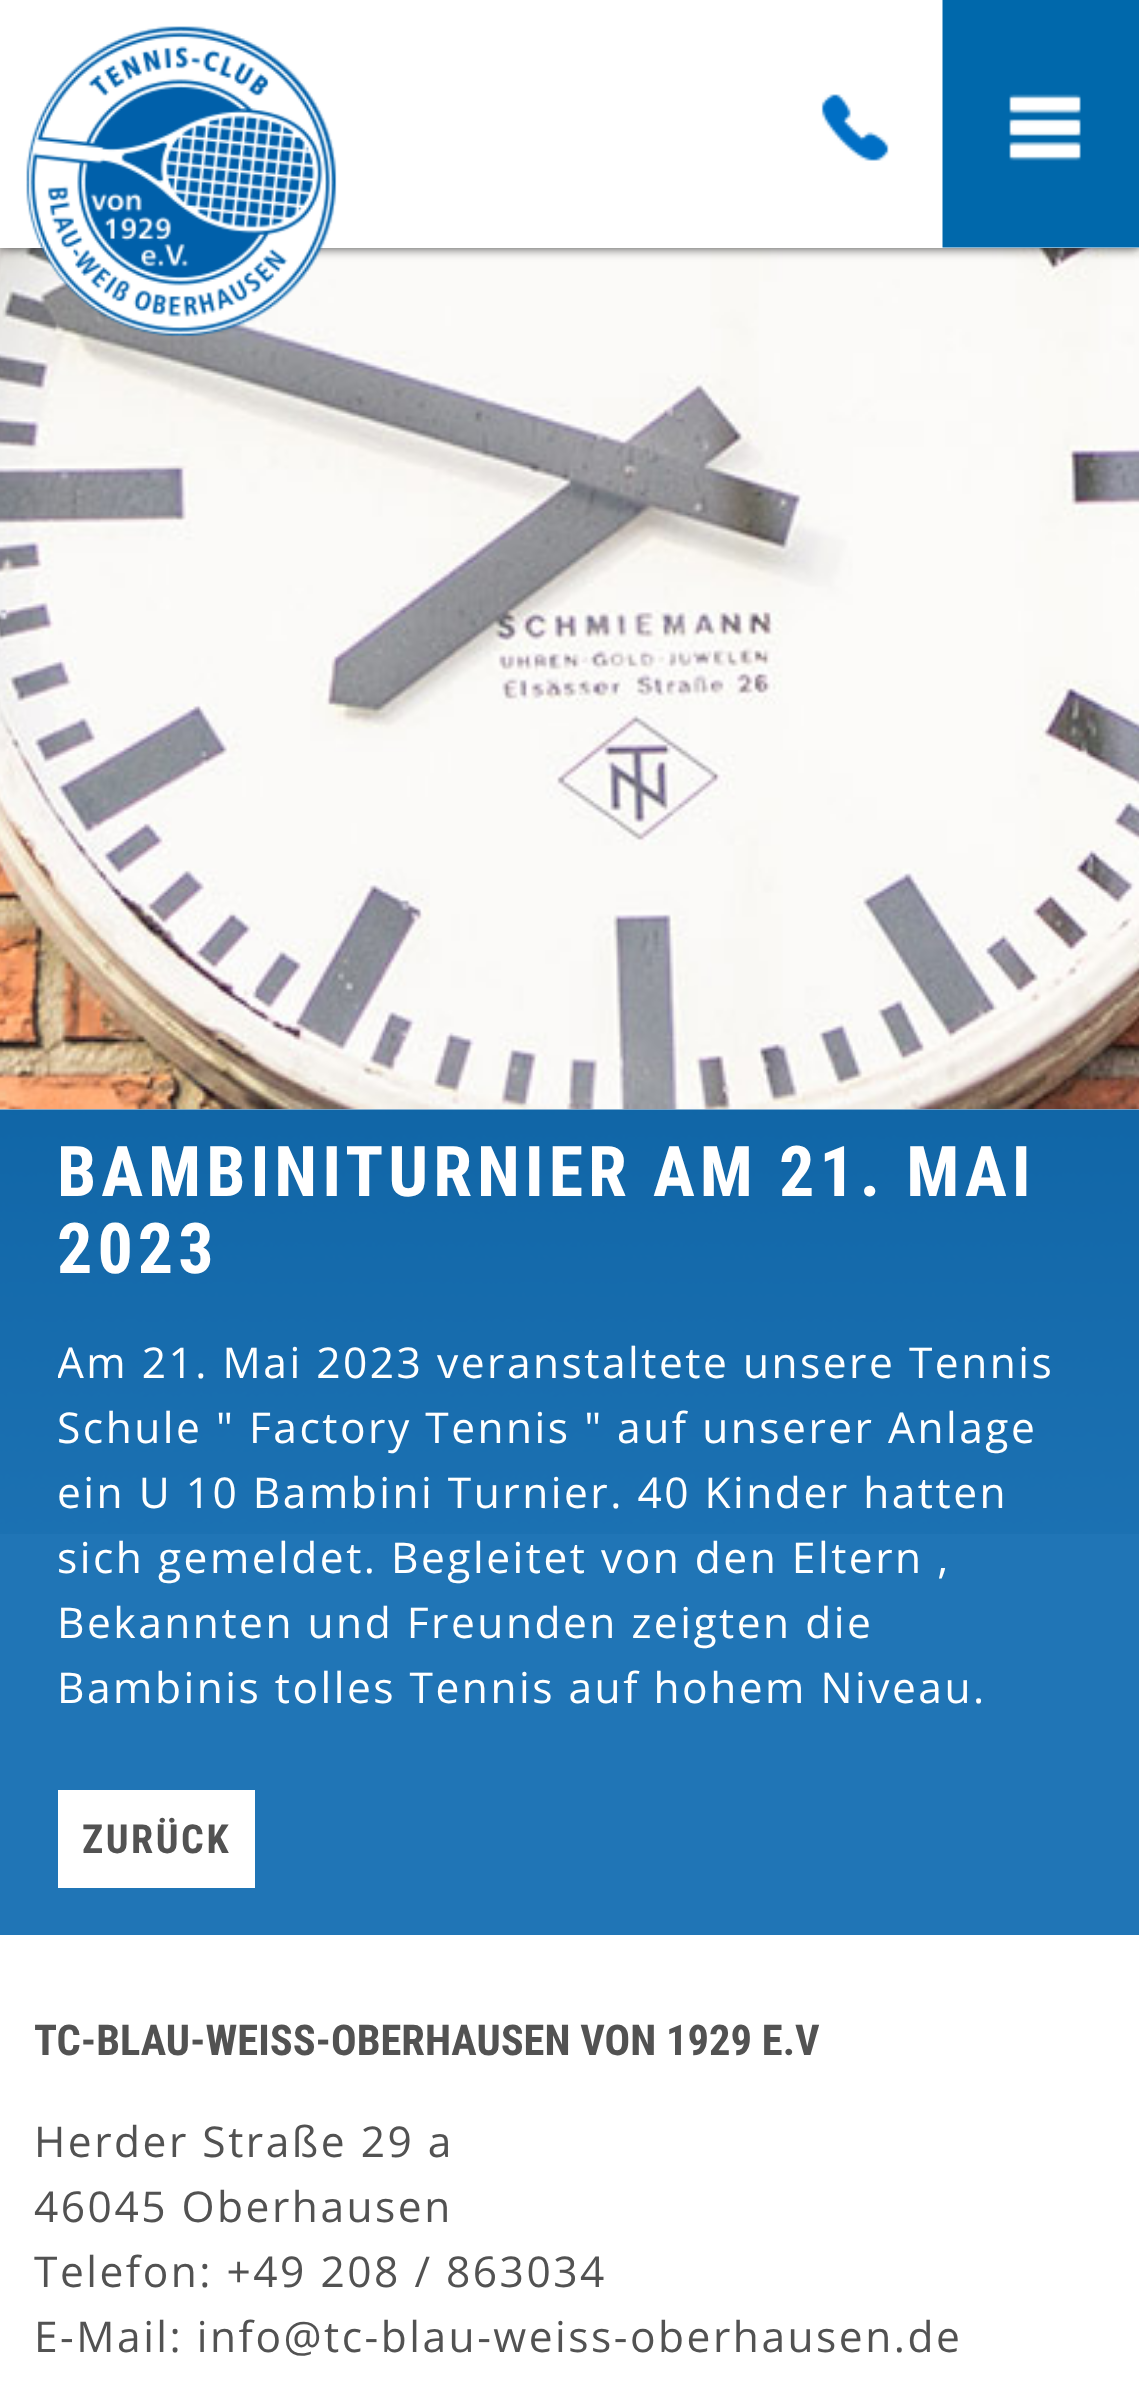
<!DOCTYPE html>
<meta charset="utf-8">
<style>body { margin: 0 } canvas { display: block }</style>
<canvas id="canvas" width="1139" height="2404"></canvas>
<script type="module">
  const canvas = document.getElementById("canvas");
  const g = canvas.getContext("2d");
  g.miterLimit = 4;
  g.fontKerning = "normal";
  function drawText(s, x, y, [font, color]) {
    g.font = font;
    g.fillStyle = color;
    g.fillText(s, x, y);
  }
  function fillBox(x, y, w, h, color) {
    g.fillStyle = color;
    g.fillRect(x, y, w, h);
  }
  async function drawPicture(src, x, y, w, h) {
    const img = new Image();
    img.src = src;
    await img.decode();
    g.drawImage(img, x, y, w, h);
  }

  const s1 = ["bold 70px Roboto Condensed", "#FFFFFF"];
  const s2 = ["42.5px Open Sans", "#FFFFFF"];
  const s3 = ["bold 40px Roboto Condensed", "#525252"];
  const s4 = ["bold 42.5px Roboto Condensed", "#525252"];
  const s5 = ["42.5px Open Sans", "#525252"];

  fillBox(0, 0, 1139, 2404, "#FFFFFF");
  await drawPicture("pic4.png", 0, 248, 1139, 862);
  g.fillStyle = "rgba(0, 0, 0, 0.75)";
  g.filter = "blur(6px)";
  g.beginPath();
  g.rect(0, 0, 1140, 248);
  g.fill();
  g.filter = "none";
  fillBox(0, 0, 1139, 248, "#FFFFFF");
  await drawPicture("pic1.png", 26, 26, 311, 311);
  await drawPicture("pic2.png", 821, 94, 68, 67);
  await drawPicture("pic3.png", 942, 0, 197, 248);
  fillBox(0, 1534, 1139, 401, "#2075B6");
  await drawPicture("pic5.png", 0, 1109, 1139, 425);
  g.letterSpacing = "5px";
  drawText("BAMBINITURNIER AM 21. MAI", 57, 1196, s1);
  drawText("2023", 57, 1273, s1);
  g.save();
  g.beginPath();
  g.rect(58, 1288, 1025, 475);
  g.clip();
  g.letterSpacing = "2.5px";
  drawText("Am 21. Mai 2023 veranstaltete unsere Tennis", 57, 1378, s2);
  g.restore();
  g.letterSpacing = "2.5px";
  drawText("Schule \" Factory Tennis \" auf unserer Anlage", 57, 1443, s2);
  drawText("ein U 10 Bambini Turnier. 40 Kinder hatten", 57, 1508, s2);
  drawText("sich gemeldet. Begleitet von den Eltern ,", 57, 1573, s2);
  drawText("Bekannten und Freunden zeigten die", 57, 1638, s2);
  drawText("Bambinis tolles Tennis auf hohem Niveau.", 57, 1703, s2);
  fillBox(58, 1790, 197, 98, "#FFFFFF");
  drawText("ZURÜCK", 82, 1853, s3);
  g.letterSpacing = "0px";
  drawText("TC-BLAU-WEISS-OBERHAUSEN VON 1929 E.V", 34, 2055, s4);
  g.letterSpacing = "2.5px";
  drawText("Herder Straße 29 a", 34, 2157, s5);
  drawText("46045 Oberhausen", 34, 2222, s5);
  drawText("Telefon: +49 208 / 863034", 34, 2287, s5);
  drawText("E-Mail: info@tc-blau-weiss-oberhausen.de", 34, 2352, s5);
</script>
